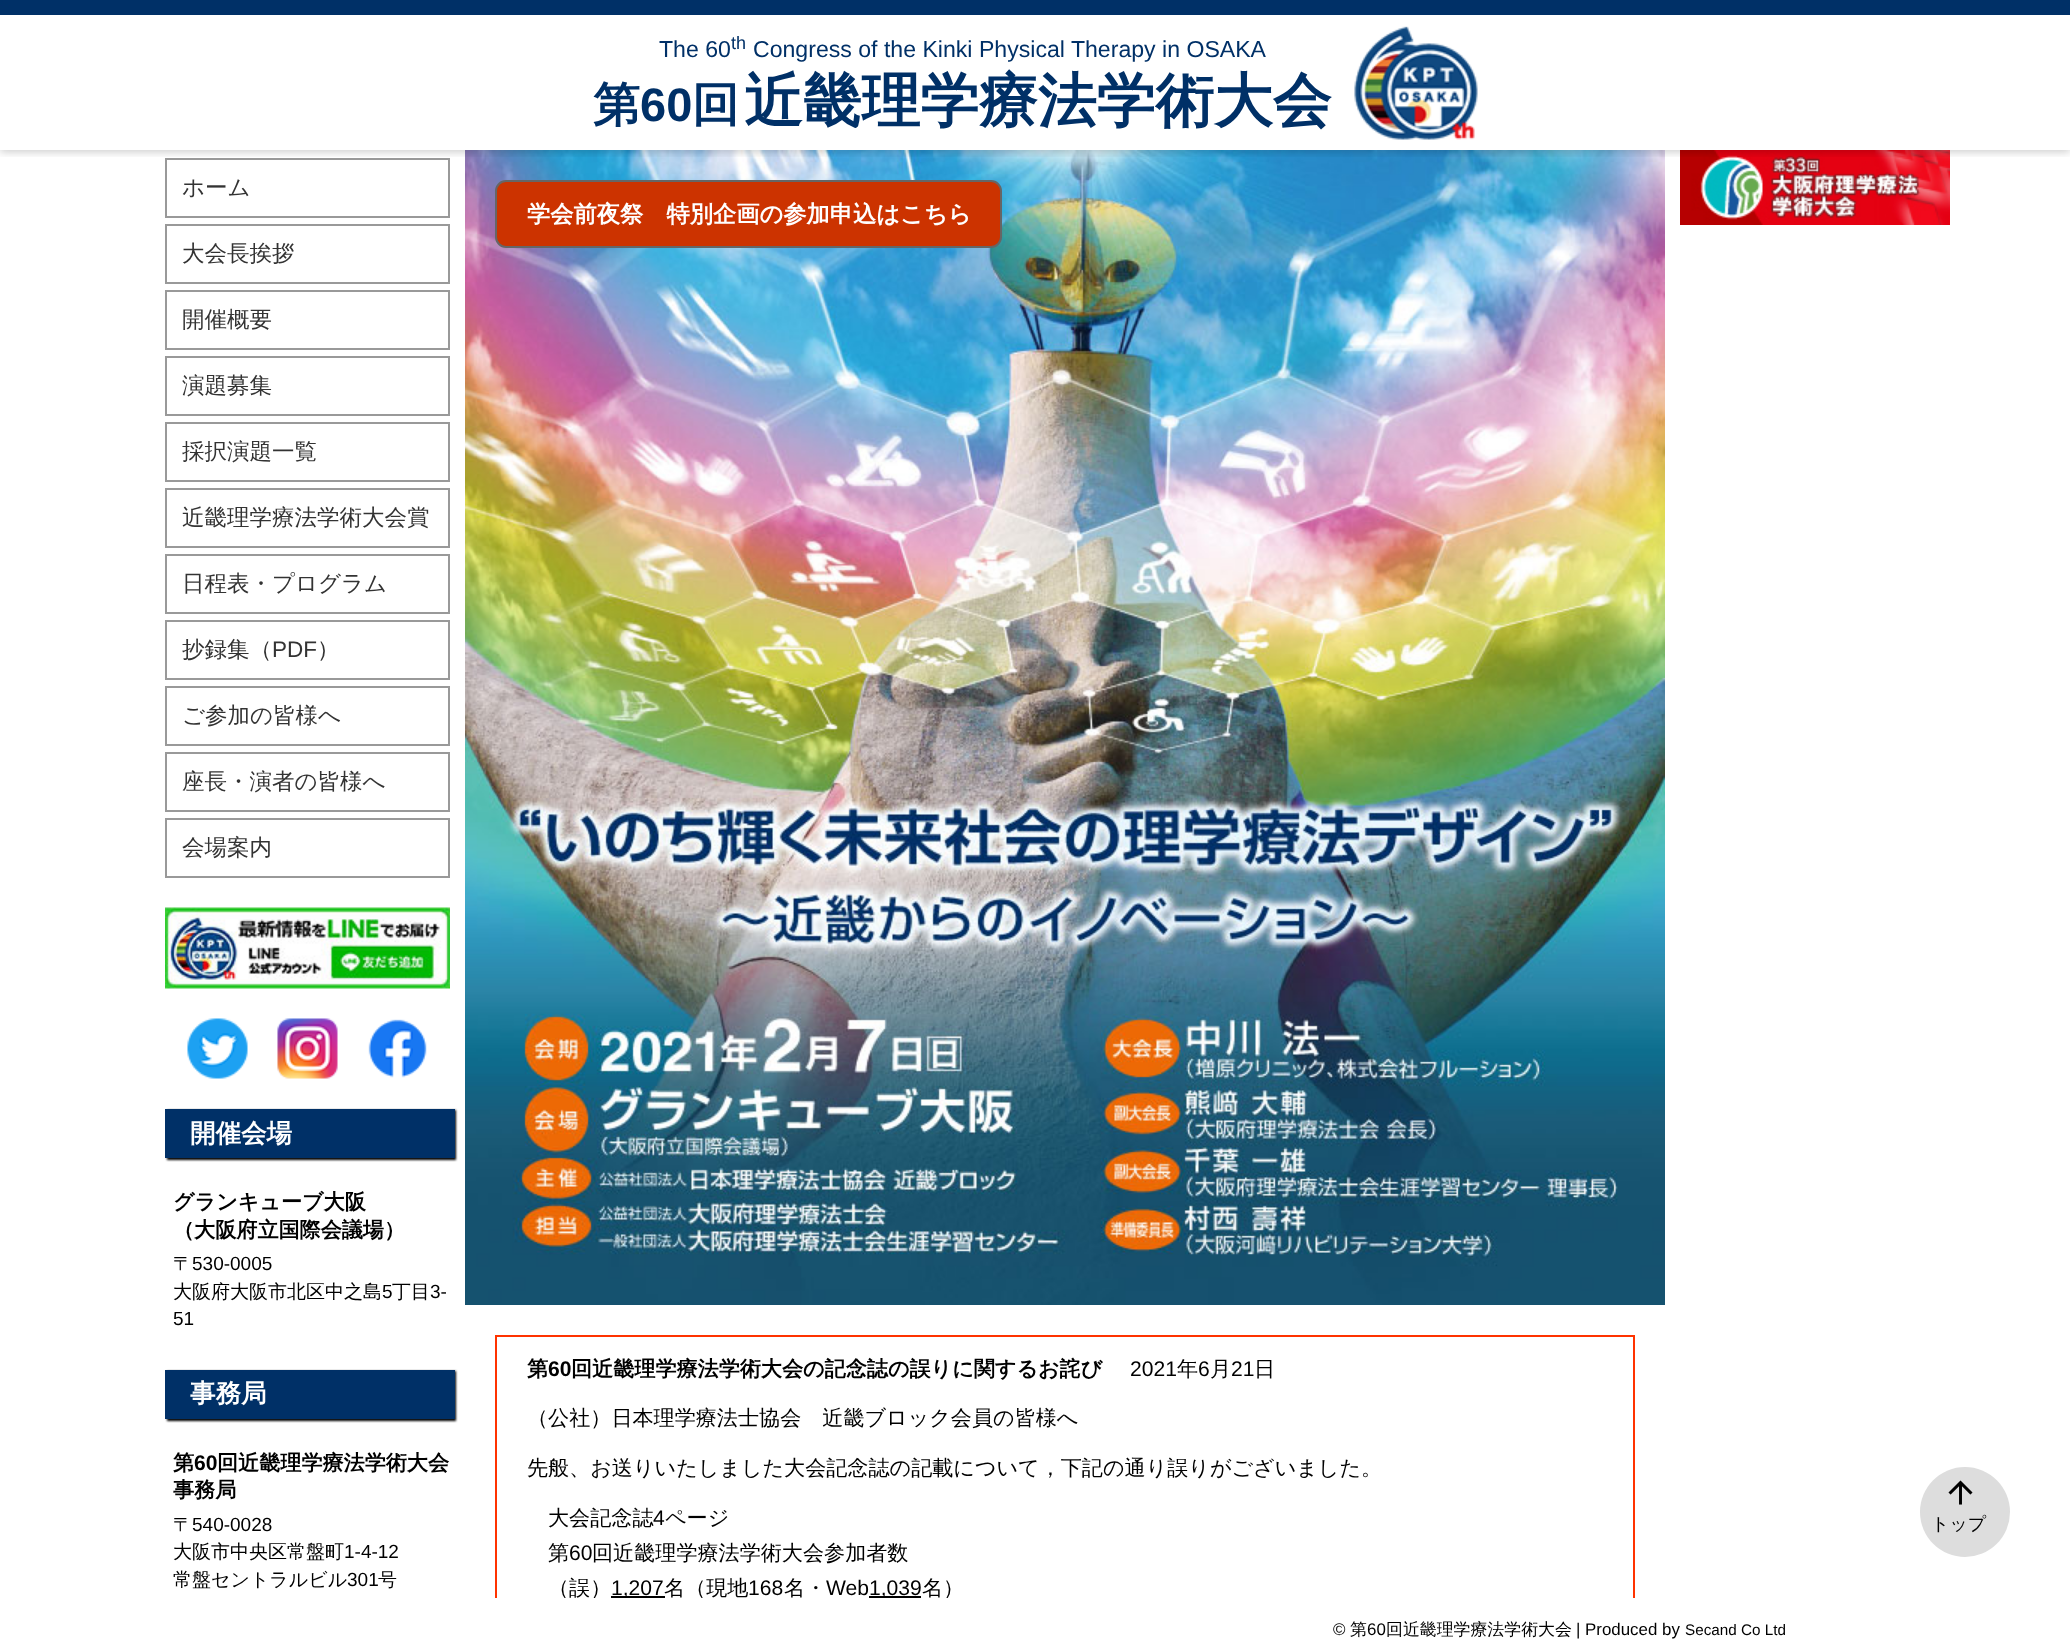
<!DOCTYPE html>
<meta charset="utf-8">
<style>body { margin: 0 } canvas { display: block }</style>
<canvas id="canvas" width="2070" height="1647"></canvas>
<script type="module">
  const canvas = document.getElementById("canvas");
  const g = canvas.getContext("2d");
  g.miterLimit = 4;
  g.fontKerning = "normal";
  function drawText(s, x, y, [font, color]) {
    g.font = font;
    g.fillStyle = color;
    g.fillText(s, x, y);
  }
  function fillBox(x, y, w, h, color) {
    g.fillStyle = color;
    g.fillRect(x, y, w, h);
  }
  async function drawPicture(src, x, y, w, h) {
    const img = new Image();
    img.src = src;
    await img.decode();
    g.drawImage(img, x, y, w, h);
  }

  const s1 = ["23.1px Liberation Sans", "#003067"];
  const s2 = ["18px Liberation Sans", "#003067"];
  const s3 = ["bold 47px WenQuanYi Zen Hei", "#003067"];
  const s4 = ["bold 47px Liberation Sans", "#003067"];
  const s5 = ["bold 58.75px WenQuanYi Zen Hei", "#003067"];
  const s6 = ["500 22.5px WenQuanYi Zen Hei", "#333333"];
  const s7 = ["22.5px Liberation Sans", "#333333"];
  const s8 = ["bold 25.5px WenQuanYi Zen Hei", "#FFFFFF"];
  const s9 = ["bold 21.1px WenQuanYi Zen Hei", "#000000"];
  const s10 = ["500 19px WenQuanYi Zen Hei", "#000000"];
  const s11 = ["19px Liberation Sans", "#000000"];
  const s12 = ["bold 21.1px Liberation Sans", "#000000"];
  const s13 = ["bold 23.25px WenQuanYi Zen Hei", "#FFFFFF"];
  const s14 = ["21.1px Liberation Sans", "#000000"];
  const s15 = ["500 21.1px WenQuanYi Zen Hei", "#000000"];
  const s16 = ["500 18px WenQuanYi Zen Hei", "#000000"];
  const s17 = ["16.9px Liberation Sans", "#000000"];
  const s18 = ["500 16.9px WenQuanYi Zen Hei", "#000000"];
  const s19 = ["15.25px Liberation Sans", "#000000"];

  fillBox(0, 0, 2070, 1647, "#FFFFFF");
  g.strokeStyle = "#999999";
  g.lineWidth = 2;
  g.strokeRect(166, 159, 283, 58);
  await drawPicture("pic6.png", 465, 150, 1200, 1155);
  await drawPicture("pic7.png", 1680, 150, 270, 75);
  g.save();
  g.beginPath();
  g.rect(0, 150, 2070, 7);
  g.clip();
  g.fillStyle = "rgba(0, 0, 0, 0.2)";
  g.filter = "blur(4px)";
  g.beginPath();
  g.rect(0, 2, 2070, 150);
  g.fill();
  g.filter = "none";
  g.restore();
  fillBox(0, 0, 2070, 15, "#003067");
  drawText("The 60", 659, 57, s1);
  drawText("th", 731, 49, s2);
  drawText("Congress of the Kinki Physical Therapy in OSAKA", 753, 57, s1);
  drawText("第", 593, 121, s3);
  drawText("60", 640, 121, s4);
  drawText("回", 692, 121, s3);
  drawText("近畿理学療法学術大会", 744, 121, s5);
  await drawPicture("pic1.png", 1354, 26, 124, 114);
  drawText("ホーム", 182, 195, s6);
  g.strokeRect(166, 225, 283, 58);
  drawText("大会長挨拶", 182, 261, s6);
  g.strokeRect(166, 291, 283, 58);
  drawText("開催概要", 182, 327, s6);
  g.strokeRect(166, 357, 283, 58);
  drawText("演題募集", 182, 393, s6);
  g.strokeRect(166, 423, 283, 58);
  drawText("採択演題一覧", 182, 459, s6);
  g.strokeRect(166, 489, 283, 58);
  drawText("近畿理学療法学術大会賞", 182, 525, s6);
  g.strokeRect(166, 555, 283, 58);
  drawText("日程表・プログラム", 182, 591, s6);
  g.strokeRect(166, 621, 283, 58);
  drawText("抄録集（", 182, 657, s6);
  drawText("PDF", 272, 657, s7);
  drawText("）", 317, 657, s6);
  g.strokeRect(166, 687, 283, 58);
  drawText("ご参加の皆様へ", 182, 723, s6);
  g.strokeRect(166, 753, 283, 58);
  drawText("座長・演者の皆様へ", 182, 789, s6);
  g.strokeRect(166, 819, 283, 58);
  drawText("会場案内", 182, 855, s6);
  await drawPicture("pic2.png", 165, 907, 285, 82);
  await drawPicture("pic3.png", 187, 1018, 61, 61);
  await drawPicture("pic4.png", 277, 1018, 61, 61);
  await drawPicture("pic5.png", 368, 1019, 59, 59);
  g.fillStyle = "#000000";
  g.filter = "blur(1px)";
  g.beginPath();
  g.rect(167, 1110, 289, 50);
  g.fill();
  g.filter = "none";
  fillBox(165, 1109, 290, 49, "#003067");
  drawText("開催会場", 190, 1142, s8);
  drawText("グランキューブ大阪", 173, 1209, s9);
  drawText("（大阪府立国際会議場）", 173, 1237, s9);
  drawText("〒", 173, 1270, s10);
  drawText("530-0005", 192, 1270, s11);
  drawText("大阪府大阪市北区中之島", 173, 1298, s10);
  drawText("5", 382, 1298, s11);
  drawText("丁目", 392, 1298, s10);
  drawText("3-", 430, 1298, s11);
  drawText("51", 173, 1325, s11);
  g.filter = "blur(1px)";
  g.beginPath();
  g.rect(167, 1371, 289, 50);
  g.fill();
  g.filter = "none";
  fillBox(165, 1370, 290, 49, "#003067");
  drawText("事務局", 190, 1402, s8);
  drawText("第", 173, 1470, s9);
  drawText("60", 194, 1470, s12);
  drawText("回近畿理学療法学術大会", 217, 1470, s9);
  drawText("事務局", 173, 1497, s9);
  drawText("〒", 173, 1531, s10);
  drawText("540-0028", 192, 1531, s11);
  drawText("大阪市中央区常盤町", 173, 1558, s10);
  drawText("1-4-12", 344, 1558, s11);
  drawText("常盤セントラルビル", 173, 1586, s10);
  drawText("301", 347, 1586, s11);
  drawText("号", 378, 1586, s10);
  g.fillStyle = "#CC3300";
  g.beginPath();
  g.roundRect(496, 181, 505, 66, 10);
  g.fill();
  g.strokeStyle = "#666666";
  g.stroke();
  drawText("学会前夜祭　特別企画の参加申込はこちら", 527, 222, s13);
  g.strokeStyle = "#FF3300";
  g.strokeRect(496, 1336, 1138, 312);
  drawText("第", 527, 1376, s9);
  drawText("60", 548, 1376, s12);
  drawText("回近畿理学療法学術大会の記念誌の誤りに関するお詫び", 571, 1376, s9);
  drawText("2021", 1130, 1376, s14);
  drawText("年", 1177, 1376, s15);
  drawText("6", 1198, 1376, s14);
  drawText("月", 1210, 1376, s15);
  drawText("21", 1231, 1376, s14);
  drawText("日", 1254, 1376, s15);
  drawText("（公社）日本理学療法士協会　近畿ブロック会員の皆様へ", 527, 1425, s15);
  drawText("先般、お送りいたしました大会記念誌の記載について，下記の通り誤りがございました。", 527, 1475, s15);
  drawText("大会記念誌", 548, 1525, s15);
  drawText("4", 653, 1525, s14);
  drawText("ページ", 665, 1525, s15);
  drawText("第", 548, 1560, s15);
  drawText("60", 569, 1560, s14);
  drawText("回近畿理学療法学術大会参加者数", 592, 1560, s15);
  drawText("（誤）", 548, 1595, s15);
  fillBox(611, 1596, 54, 2, "#000000");
  drawText("1,207", 611, 1595, s14);
  drawText("名（現地", 664, 1595, s15);
  drawText("168", 748, 1595, s14);
  drawText("名・", 784, 1595, s15);
  drawText("Web", 826, 1595, s14);
  fillBox(869, 1596, 52, 2, "#000000");
  drawText("1,039", 869, 1595, s14);
  drawText("名）", 922, 1595, s15);
  g.fillStyle = "#DDDDDD";
  g.beginPath();
  g.arc(1965, 1512, 45, 0, Math.PI * 2);
  g.fill();
  await drawPicture("pic8.png", 1948, 1480, 25, 25);
  drawText("トップ", 1931, 1530, s16);
  fillBox(495, 1598, 1140, 49, "#FFFFFF");
  drawText("©", 1333, 1635, s17);
  drawText("第", 1350, 1635, s18);
  drawText("60", 1367, 1635, s17);
  drawText("回近畿理学療法学術大会", 1386, 1635, s18);
  drawText("|", 1576, 1635, s17);
  drawText("Produced by", 1585, 1635, s17);
  drawText("Secand Co Ltd", 1685, 1635, s19);
</script>
